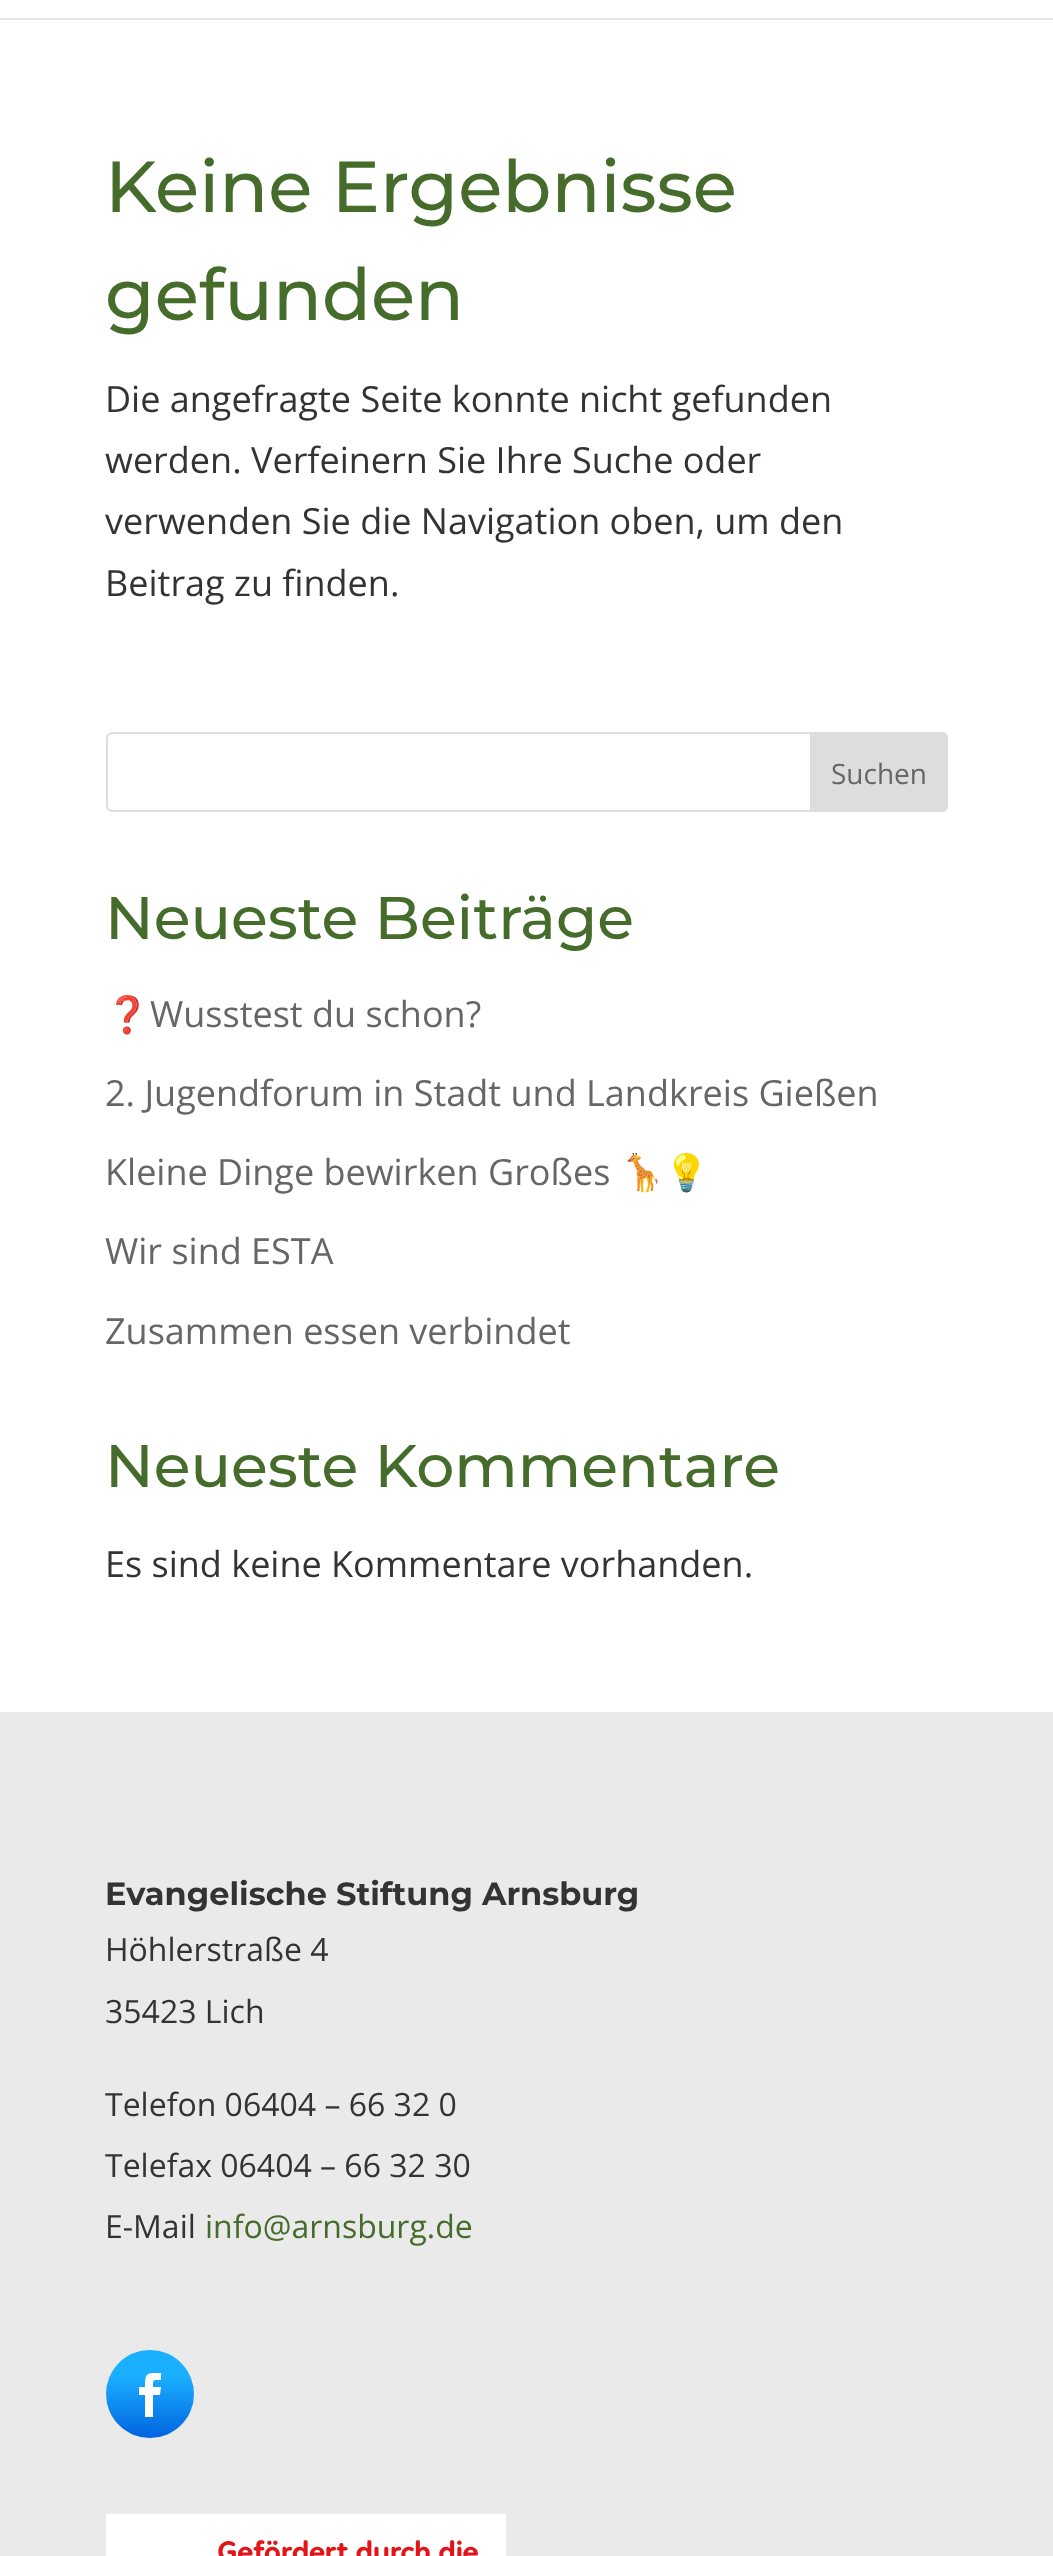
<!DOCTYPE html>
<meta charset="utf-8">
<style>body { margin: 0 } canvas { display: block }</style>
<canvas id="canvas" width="1053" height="2556"></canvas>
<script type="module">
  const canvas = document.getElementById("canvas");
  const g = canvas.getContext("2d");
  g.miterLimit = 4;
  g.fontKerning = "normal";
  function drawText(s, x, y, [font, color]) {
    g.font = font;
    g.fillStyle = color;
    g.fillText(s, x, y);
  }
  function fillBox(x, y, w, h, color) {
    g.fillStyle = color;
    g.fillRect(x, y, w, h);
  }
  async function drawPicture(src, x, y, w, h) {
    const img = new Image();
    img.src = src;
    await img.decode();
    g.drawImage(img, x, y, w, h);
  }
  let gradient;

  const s1 = ["100 72px Montserrat", "#466C2C"];
  const s2 = ["36px Open Sans", "#333333"];
  const s3 = ["28px Open Sans", "#666666"];
  const s4 = ["100 60px Montserrat", "#466C2C"];
  const s5 = ["36px Noto Color Emoji", "#666666"];
  const s6 = ["36px Open Sans", "#666666"];
  const s7 = ["100 32px 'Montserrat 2'", "#333333"];
  const s8 = ["32px Open Sans", "#333333"];
  const s9 = ["32px Open Sans", "#466C2C"];

  fillBox(0, 0, 1053, 2556, "#FFFFFF");
  fillBox(0, 18, 1053, 2, "#E6E6E6");
  drawText("Keine Ergebnisse", 105, 212, s1);
  drawText("gefunden", 105, 320, s1);
  drawText("Die angefragte Seite konnte nicht gefunden", 105, 412, s2);
  drawText("werden. Verfeinern Sie Ihre Suche oder", 105, 473, s2);
  drawText("verwenden Sie die Navigation oben, um den", 105, 534, s2);
  drawText("Beitrag zu finden.", 105, 596, s2);
  g.beginPath();
  g.roundRect(107, 733, 840, 78, 5);
  g.strokeStyle = "#DDDDDD";
  g.lineWidth = 2;
  g.stroke();
  g.fillStyle = "#DDDDDD";
  g.beginPath();
  g.roundRect(811, 733, 136, 78, [0, 5, 5, 0]);
  g.fill();
  g.stroke();
  drawText("Suchen", 831, 784, s3);
  drawText("Neueste Beiträge", 105, 939, s4);
  drawText("❓", 105, 1027, s5);
  drawText("Wusstest du schon?", 150, 1027, s6);
  drawText("2. Jugendforum in Stadt und Landkreis Gießen", 105, 1106, s6);
  drawText("Kleine Dinge bewirken Großes", 105, 1185, s6);
  drawText("🦒💡", 620, 1185, s5);
  drawText("Wir sind ESTA", 105, 1264, s6);
  drawText("Zusammen essen verbindet", 105, 1344, s6);
  drawText("Neueste Kommentare", 105, 1487, s4);
  drawText("Es sind keine Kommentare vorhanden.", 105, 1577, s2);
  fillBox(0, 1712, 1053, 844, "#EAEAEA");
  drawText("Evangelische Stiftung Arnsburg", 105, 1905, s7);
  drawText("Höhlerstraße 4", 105, 1961, s8);
  drawText("35423 Lich", 105, 2023, s8);
  drawText("Telefon 06404 – 66 32 0", 105, 2116, s8);
  drawText("Telefax 06404 – 66 32 30", 105, 2177, s8);
  drawText("E-Mail", 105, 2238, s8);
  drawText("info@arnsburg.de", 205, 2238, s9);
  gradient = g.createLinearGradient(150, 2350, 150, 2438);
  gradient.addColorStop(0.3, "#1BAFFF");
  gradient.addColorStop(0.98, "#0165E1");
  g.fillStyle = gradient;
  g.beginPath();
  g.arc(150, 2394, 44, 0, Math.PI * 2);
  g.fill();
  g.fillStyle = "#FFFFFF";
  g.beginPath();
  g.moveTo(145, 2417);
  g.lineTo(153, 2417);
  g.lineTo(153, 2395);
  g.lineTo(160, 2395);
  g.lineTo(161, 2387);
  g.lineTo(153, 2387);
  g.bezierCurveTo(153, 2379, 153, 2380, 161, 2380);
  g.lineTo(161, 2373);
  g.bezierCurveTo(147, 2373, 145, 2372, 145, 2387);
  g.lineTo(139, 2387);
  g.lineTo(139, 2395);
  g.lineTo(145, 2395);
  g.closePath();
  g.fill();
  await drawPicture("pic1.png", 106, 2514, 400, 42);
</script>
